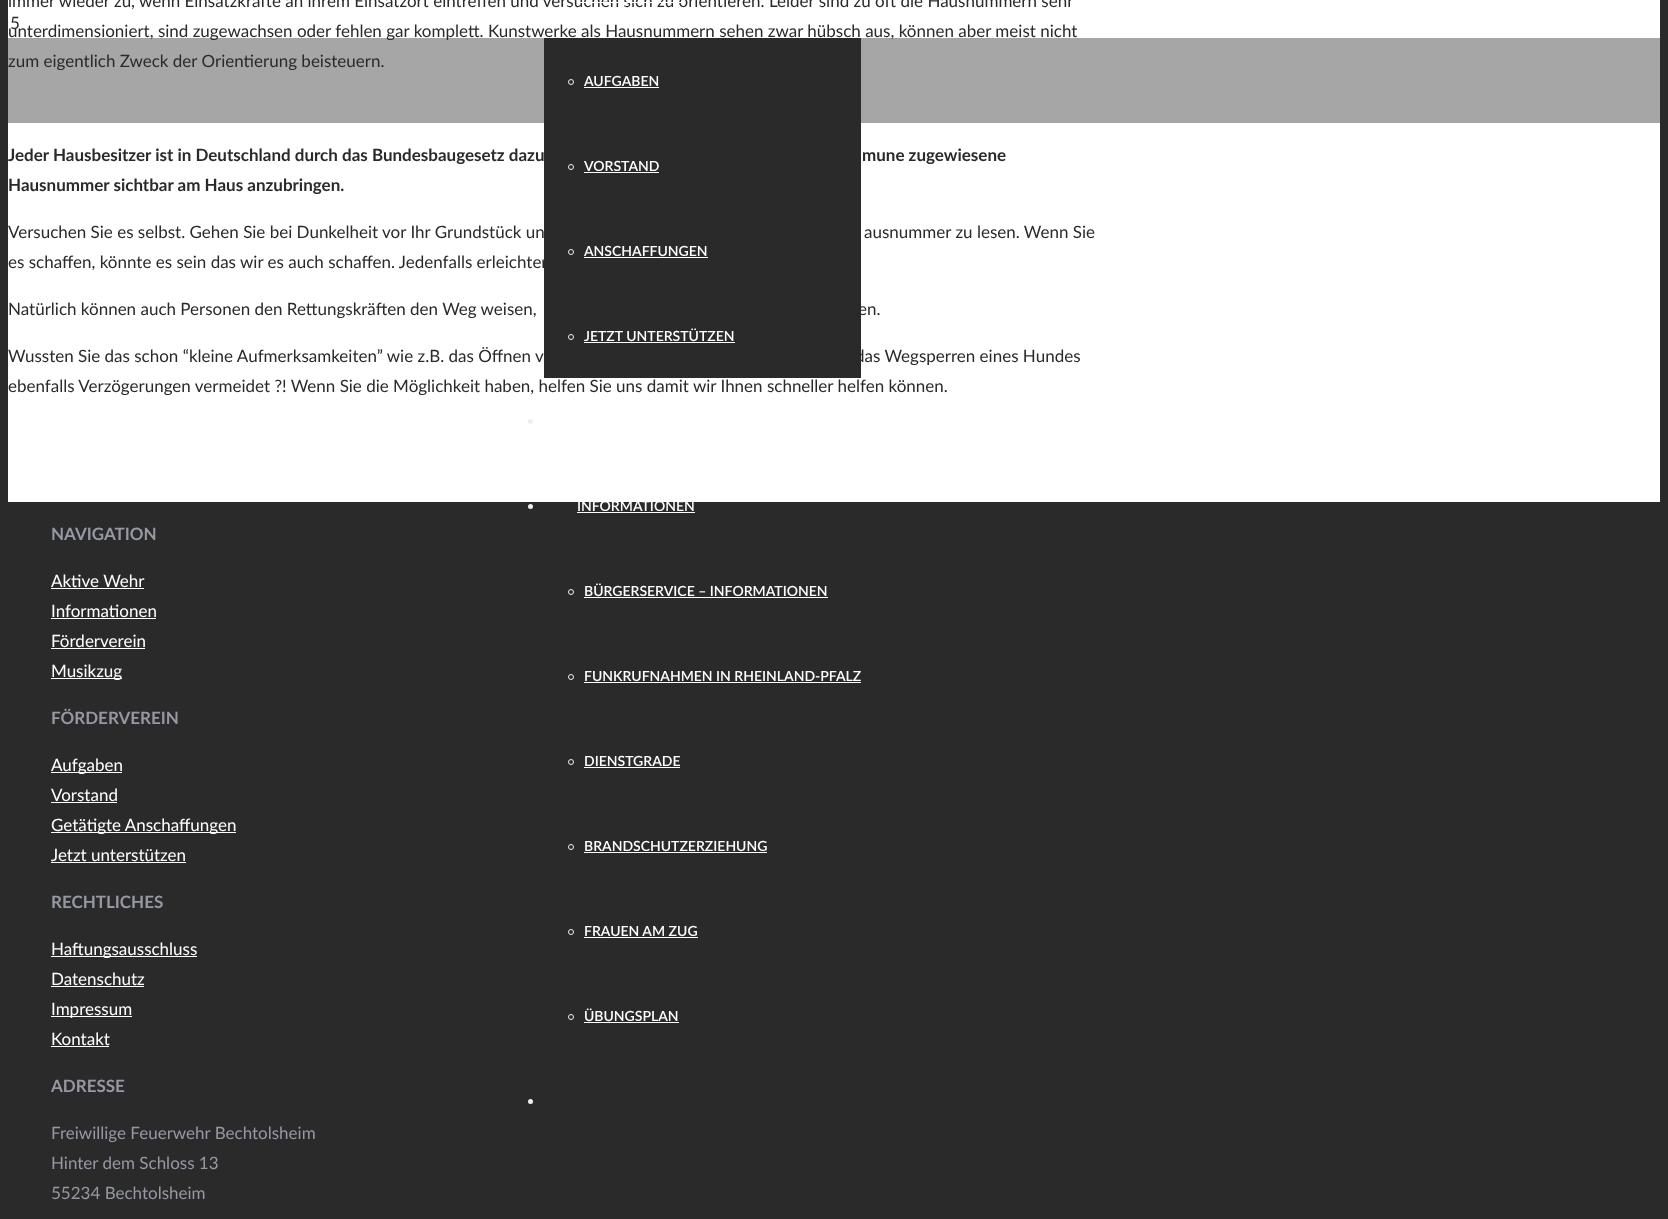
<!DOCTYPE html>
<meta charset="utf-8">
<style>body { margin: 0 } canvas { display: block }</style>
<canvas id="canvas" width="1668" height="1219"></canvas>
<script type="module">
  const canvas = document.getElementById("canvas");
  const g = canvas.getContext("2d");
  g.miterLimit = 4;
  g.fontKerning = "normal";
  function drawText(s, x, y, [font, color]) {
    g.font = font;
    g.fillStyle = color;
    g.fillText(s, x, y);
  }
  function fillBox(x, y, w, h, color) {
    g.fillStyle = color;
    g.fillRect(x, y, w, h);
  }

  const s1 = ["17px Lato", "#2A2A2A"];
  const s2 = ["bold 17px Lato", "#2A2A2A"];
  const s3 = ["600 14px Lato", "#FFFFFF"];
  const s4 = ["bold 17px Lato", "#9698A3"];
  const s5 = ["17px Lato", "#FFFFFF"];
  const s6 = ["17px Lato", "#9698A3"];

  fillBox(0, 0, 1668, 1219, "#2A2A2A");
  fillBox(8, 0, 1652, 502, "#FFFFFF");
  drawText("immer wieder zu, wenn Einsatzkräfte an ihrem Einsatzort eintreffen und versuchen sich zu orientieren. Leider sind zu oft die Hausnummern sehr", 8, 7, s1);
  drawText("unterdimensioniert, sind zugewachsen oder fehlen gar komplett. Kunstwerke als Hausnummern sehen zwar hübsch aus, können aber meist nicht", 8, 37, s1);
  drawText("zum eigentlich Zweck der Orientierung beisteuern.", 8, 67, s1);
  drawText("Jeder Hausbesitzer ist in Deutschland durch das Bundesbaugesetz dazu", 8, 161, s2);
  drawText("mune zugewiesene", 862, 161, s2);
  drawText("Hausnummer sichtbar am Haus anzubringen.", 8, 191, s2);
  drawText("Versuchen Sie es selbst. Gehen Sie bei Dunkelheit vor Ihr Grundstück un", 8, 238, s1);
  drawText("ausnummer zu lesen. Wenn Sie", 864, 238, s1);
  drawText("es schaffen, könnte es sein das wir es auch schaffen. Jedenfalls erleichter", 8, 268, s1);
  drawText("Natürlich können auch Personen den Rettungskräften den Weg weisen,", 8, 315, s1);
  drawText("en.", 858, 315, s1);
  drawText("Wussten Sie das schon “kleine Aufmerksamkeiten” wie z.B. das Öffnen v", 8, 362, s1);
  drawText("das Wegsperren eines Hundes", 855, 362, s1);
  drawText("ebenfalls Verzögerungen vermeidet ?! Wenn Sie die Möglichkeit haben, helfen Sie uns damit wir Ihnen schneller helfen können.", 8, 392, s1);
  drawText("5", 10, 29, s1);
  fillBox(8, 38, 1652, 85, "rgba(42, 42, 42, 0.42)");
  fillBox(577, 2, 105, 1, "#FFFFFF");
  fillBox(544, 38, 317, 340, "#2A2A2A");
  g.beginPath();
  g.arc(571, 82, 2.5, 0, Math.PI * 2);
  g.strokeStyle = "#EDF0F2";
  g.stroke();
  drawText("AUFGABEN", 584, 86, s3);
  fillBox(584, 87, 75, 1, "#FFFFFF");
  g.beginPath();
  g.arc(571, 167, 2.5, 0, Math.PI * 2);
  g.stroke();
  drawText("VORSTAND", 584, 171, s3);
  fillBox(584, 172, 75, 1, "#FFFFFF");
  g.beginPath();
  g.arc(571, 252, 2.5, 0, Math.PI * 2);
  g.stroke();
  drawText("ANSCHAFFUNGEN", 584, 256, s3);
  fillBox(584, 257, 124, 1, "#FFFFFF");
  g.beginPath();
  g.arc(571, 337, 2.5, 0, Math.PI * 2);
  g.stroke();
  drawText("JETZT UNTERSTÜTZEN", 584, 341, s3);
  fillBox(584, 342, 151, 1, "#FFFFFF");
  g.fillStyle = "#EDF0F2";
  g.beginPath();
  g.arc(530.5, 421.5, 2.5, 0, Math.PI * 2);
  g.fill();
  g.beginPath();
  g.arc(530.5, 506.5, 2.5, 0, Math.PI * 2);
  g.fill();
  drawText("INFORMATIONEN", 577, 511, s3);
  fillBox(577, 512, 118, 1, "#FFFFFF");
  g.beginPath();
  g.arc(571, 592, 2.5, 0, Math.PI * 2);
  g.stroke();
  drawText("BÜRGERSERVICE – INFORMATIONEN", 584, 596, s3);
  fillBox(584, 597, 244, 1, "#FFFFFF");
  g.beginPath();
  g.arc(571, 677, 2.5, 0, Math.PI * 2);
  g.stroke();
  drawText("FUNKRUFNAHMEN IN RHEINLAND-PFALZ", 584, 681, s3);
  fillBox(584, 682, 277, 1, "#FFFFFF");
  g.beginPath();
  g.arc(571, 762, 2.5, 0, Math.PI * 2);
  g.stroke();
  drawText("DIENSTGRADE", 584, 766, s3);
  fillBox(584, 767, 96, 1, "#FFFFFF");
  g.beginPath();
  g.arc(571, 847, 2.5, 0, Math.PI * 2);
  g.stroke();
  drawText("BRANDSCHUTZERZIEHUNG", 584, 851, s3);
  fillBox(584, 852, 183, 1, "#FFFFFF");
  g.beginPath();
  g.arc(571, 932, 2.5, 0, Math.PI * 2);
  g.stroke();
  drawText("FRAUEN AM ZUG", 584, 936, s3);
  fillBox(584, 937, 114, 1, "#FFFFFF");
  g.beginPath();
  g.arc(571, 1017, 2.5, 0, Math.PI * 2);
  g.stroke();
  drawText("ÜBUNGSPLAN", 584, 1021, s3);
  fillBox(584, 1022, 95, 1, "#FFFFFF");
  g.fillStyle = "#EDF0F2";
  g.beginPath();
  g.arc(530.5, 1101.5, 2.5, 0, Math.PI * 2);
  g.fill();
  drawText("NAVIGATION", 51, 540, s4);
  drawText("Aktive Wehr", 51, 587, s5);
  fillBox(51, 588, 93, 1, "#FFFFFF");
  drawText("Informationen", 51, 617, s5);
  fillBox(51, 618, 105, 1, "#FFFFFF");
  drawText("Förderverein", 51, 647, s5);
  fillBox(51, 648, 94, 1, "#FFFFFF");
  fillBox(51, 678, 71, 1, "#FFFFFF");
  drawText("Musikzug", 51, 677, s5);
  drawText("FÖRDERVEREIN", 51, 724, s4);
  fillBox(51, 772, 71, 1, "#FFFFFF");
  drawText("Aufgaben", 51, 771, s5);
  drawText("Vorstand", 51, 801, s5);
  fillBox(51, 802, 66, 1, "#FFFFFF");
  fillBox(51, 832, 185, 1, "#FFFFFF");
  drawText("Getätigte Anschaffungen", 51, 831, s5);
  drawText("Jetzt unterstützen", 51, 861, s5);
  fillBox(51, 862, 135, 1, "#FFFFFF");
  drawText("RECHTLICHES", 51, 908, s4);
  fillBox(51, 956, 146, 1, "#FFFFFF");
  drawText("Haftungsausschluss", 51, 955, s5);
  drawText("Datenschutz", 51, 985, s5);
  fillBox(51, 986, 93, 1, "#FFFFFF");
  fillBox(51, 1016, 81, 1, "#FFFFFF");
  drawText("Impressum", 51, 1015, s5);
  drawText("Kontakt", 51, 1045, s5);
  fillBox(51, 1046, 58, 1, "#FFFFFF");
  drawText("ADRESSE", 51, 1092, s4);
  drawText("Freiwillige Feuerwehr Bechtolsheim", 51, 1139, s6);
  drawText("Hinter dem Schloss 13", 51, 1169, s6);
  drawText("55234 Bechtolsheim", 51, 1199, s6);
</script>
